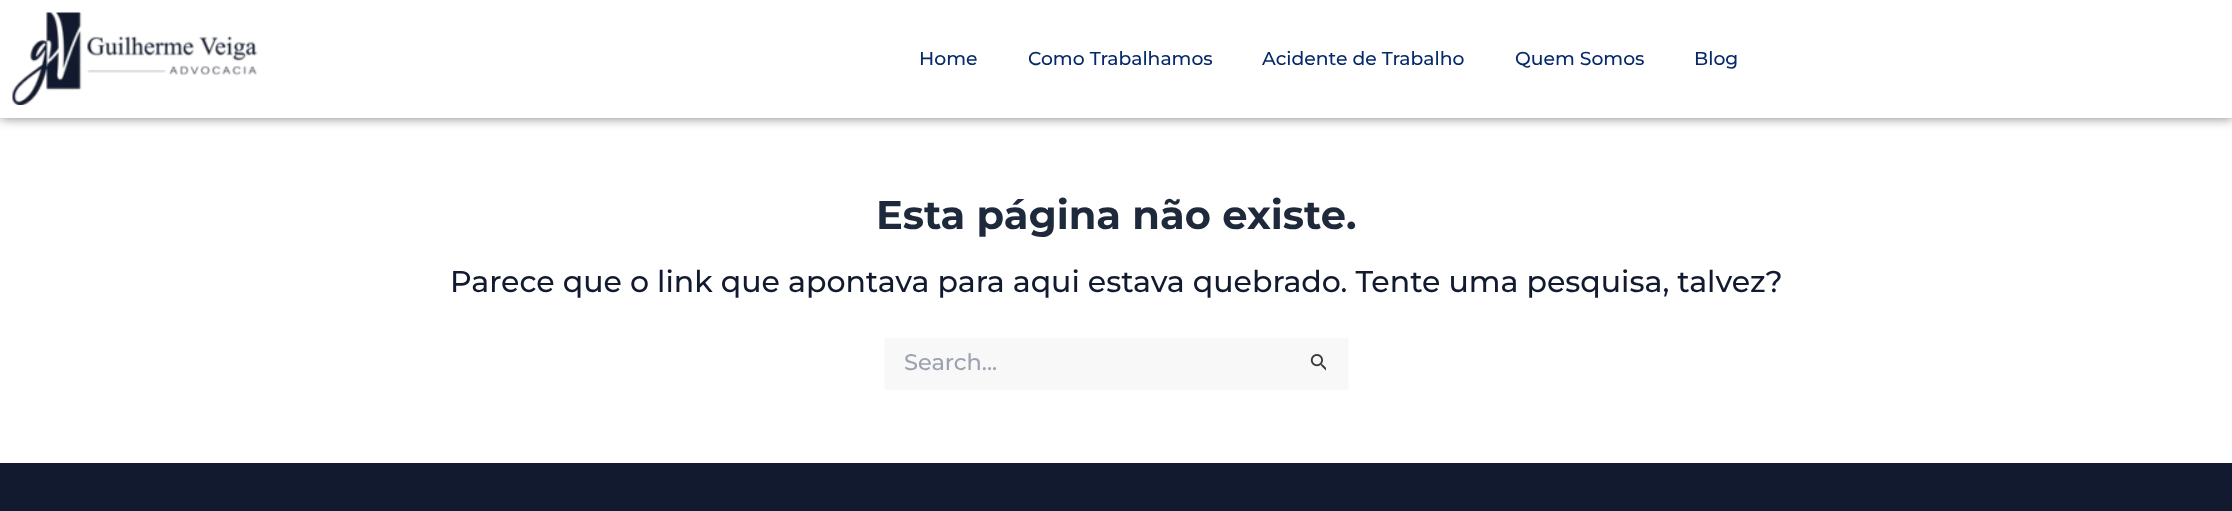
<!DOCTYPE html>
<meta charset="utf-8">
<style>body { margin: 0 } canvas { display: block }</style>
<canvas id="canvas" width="2232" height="511"></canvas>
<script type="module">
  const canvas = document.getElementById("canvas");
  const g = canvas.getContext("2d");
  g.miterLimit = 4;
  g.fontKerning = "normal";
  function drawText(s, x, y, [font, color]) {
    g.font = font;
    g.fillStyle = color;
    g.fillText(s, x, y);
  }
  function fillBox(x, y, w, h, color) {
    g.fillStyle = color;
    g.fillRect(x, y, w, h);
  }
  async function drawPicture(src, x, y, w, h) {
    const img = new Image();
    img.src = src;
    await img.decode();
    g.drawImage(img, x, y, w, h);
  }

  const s1 = ["500 18.75px Montserrat", "#06296B"];
  const s2 = ["bold 40px Montserrat", "#1E293B"];
  const s3 = ["500 30px Montserrat", "#121A2F"];
  const s4 = ["500 22.5px Montserrat", "#9CA3AF"];

  fillBox(0, 0, 2232, 511, "#FFFFFF");
  g.fillStyle = "rgba(0, 0, 0, 0.5)";
  g.filter = "blur(6px)";
  g.beginPath();
  g.rect(0, 0, 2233, 118);
  g.fill();
  g.filter = "none";
  fillBox(0, 0, 2232, 118, "#FFFFFF");
  await drawPicture("pic1.png", 12, 12, 246, 93);
  drawText("Home", 919, 65, s1);
  drawText("Como Trabalhamos", 1028, 65, s1);
  drawText("Acidente de Trabalho", 1262, 65, s1);
  drawText("Quem Somos", 1515, 65, s1);
  drawText("Blog", 1694, 65, s1);
  drawText("Esta página não existe.", 876, 229, s2);
  drawText("Parece que o link que apontava para aqui estava quebrado. Tente uma pesquisa, talvez?", 450, 292, s3);
  g.fillStyle = "rgba(0, 0, 0, 0.05)";
  g.filter = "blur(1px)";
  g.beginPath();
  g.rect(885, 339, 463, 50);
  g.fill();
  g.filter = "none";
  fillBox(885, 338, 463, 50, "#F8F8F8");
  drawText("Search...", 904, 370, s4);
  await drawPicture("pic2.png", 1310, 354, 16, 17);
  fillBox(0, 463, 2232, 48, "#121A2F");
</script>
